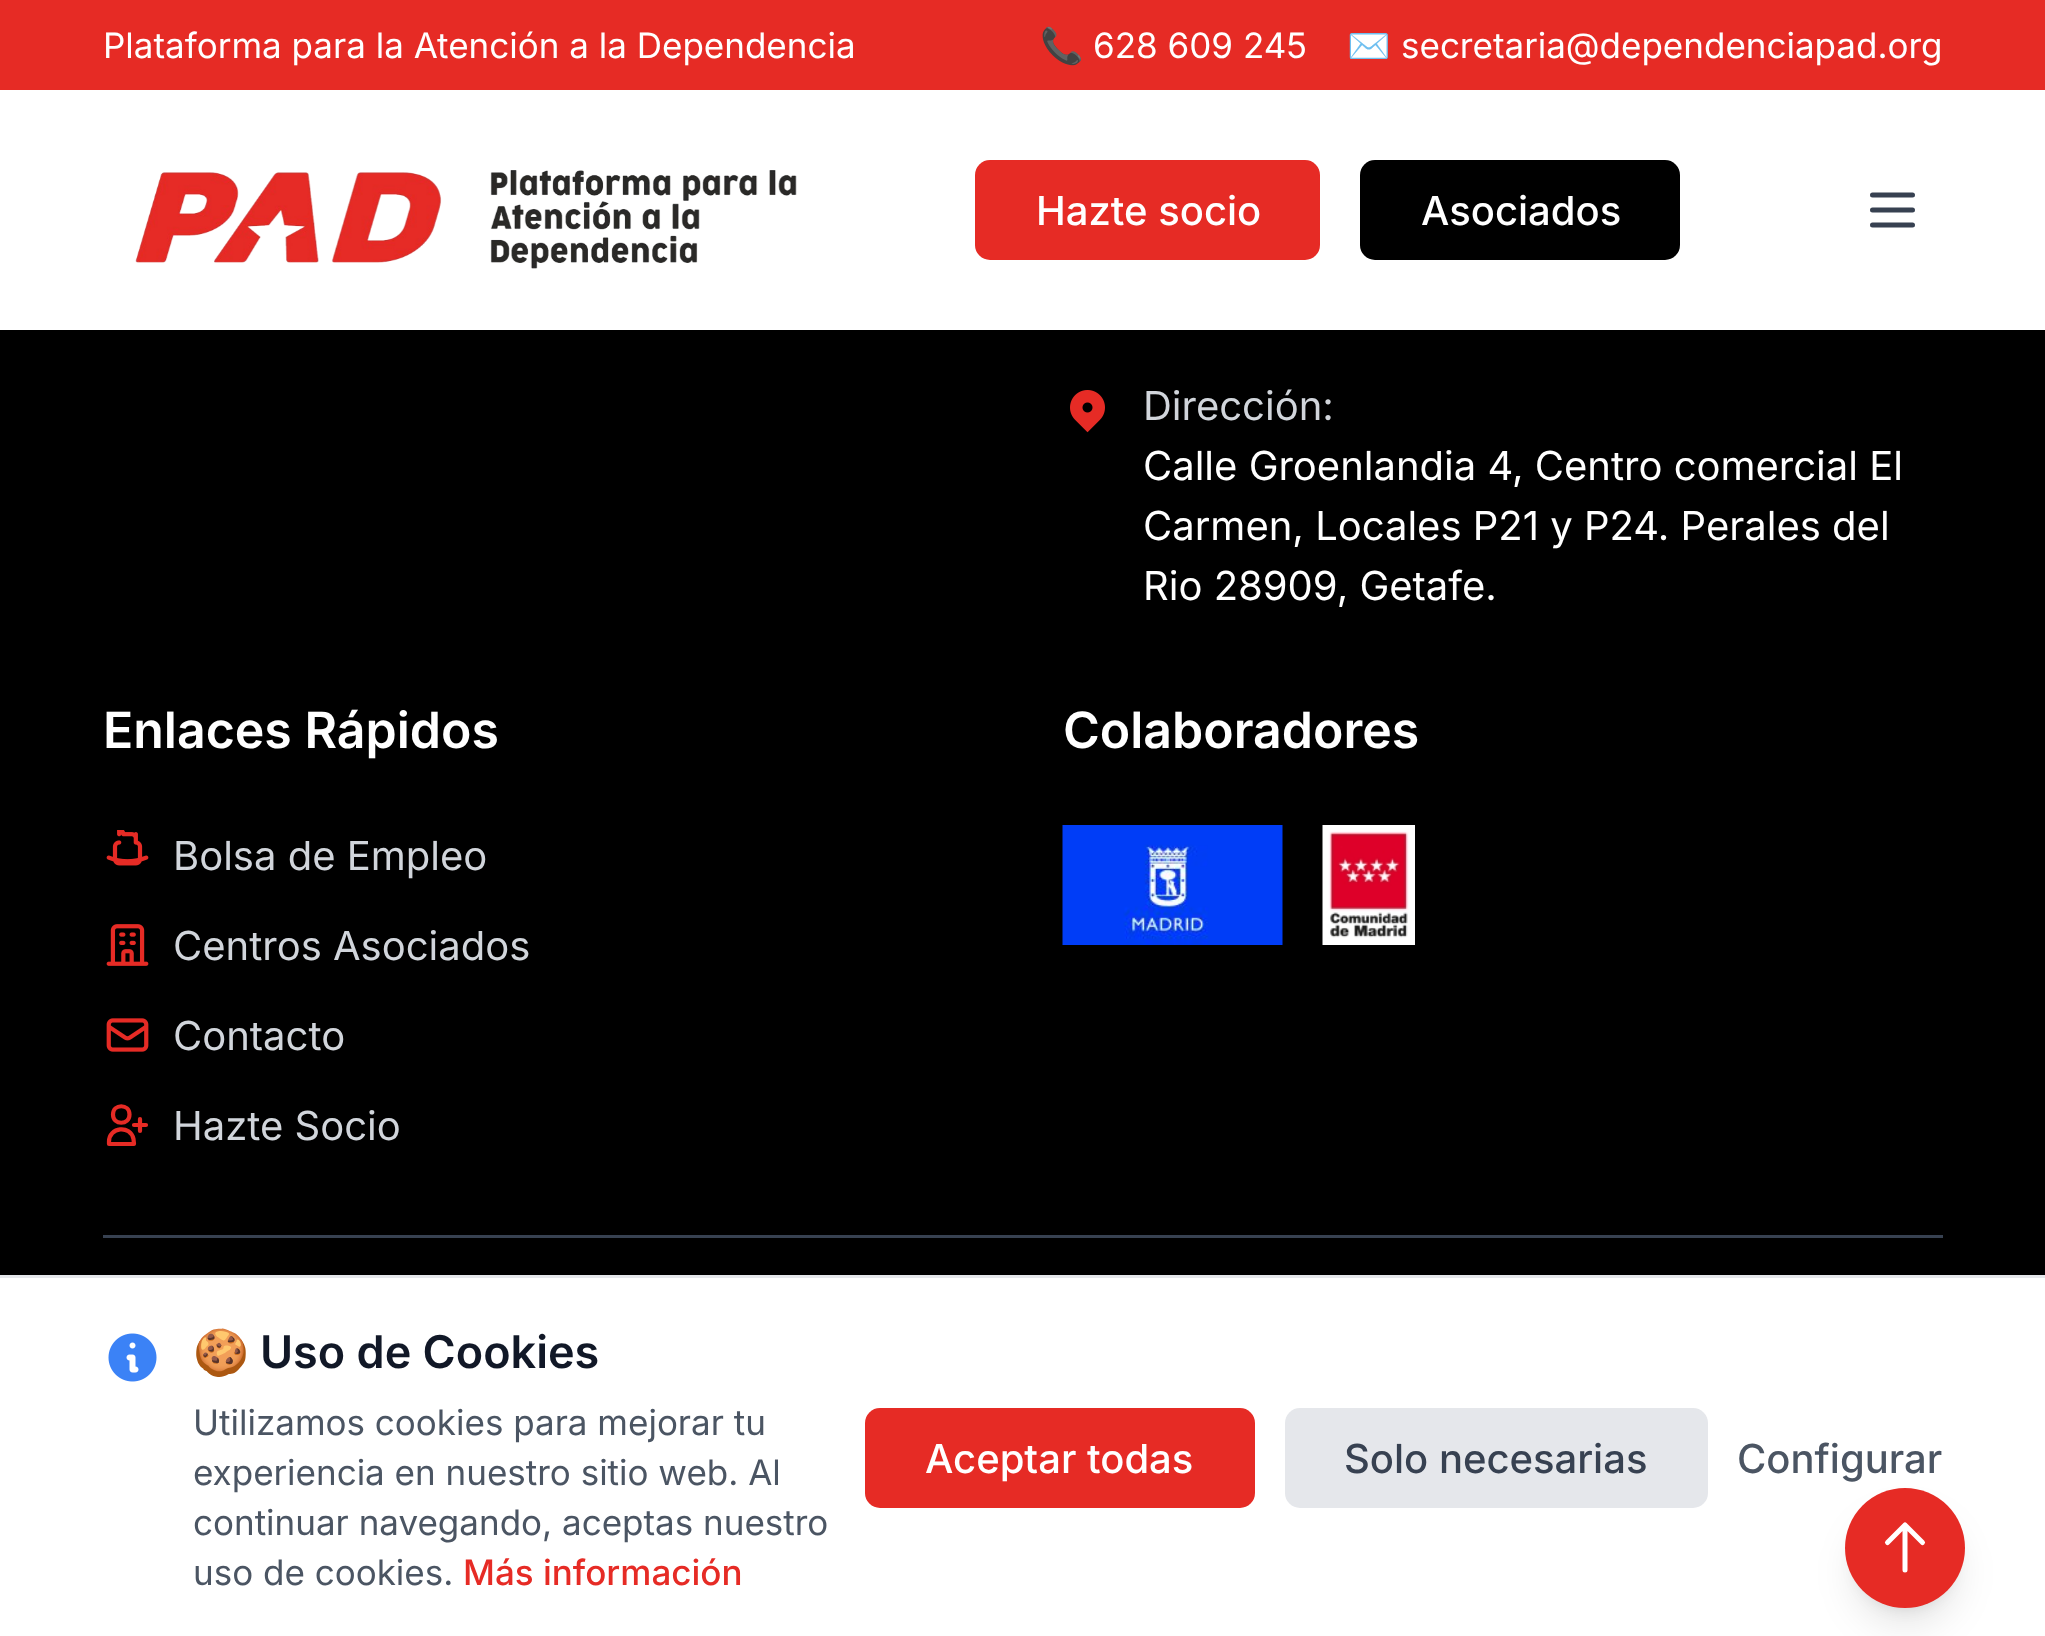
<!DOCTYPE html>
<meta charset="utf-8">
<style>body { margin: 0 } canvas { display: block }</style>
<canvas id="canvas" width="2045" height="1636"></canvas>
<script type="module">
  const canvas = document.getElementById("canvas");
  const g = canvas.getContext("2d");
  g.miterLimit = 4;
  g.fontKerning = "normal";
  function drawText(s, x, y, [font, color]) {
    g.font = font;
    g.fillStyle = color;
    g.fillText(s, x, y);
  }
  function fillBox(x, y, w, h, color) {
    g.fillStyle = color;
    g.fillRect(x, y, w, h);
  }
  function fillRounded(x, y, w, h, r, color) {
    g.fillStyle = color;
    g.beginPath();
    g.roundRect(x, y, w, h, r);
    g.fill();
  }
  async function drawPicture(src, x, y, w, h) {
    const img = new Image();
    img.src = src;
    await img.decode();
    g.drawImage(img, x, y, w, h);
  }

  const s1 = ["35px Inter", "#FFFFFF"];
  const s2 = ["35px Noto Color Emoji", "#FFFFFF"];
  const s3 = ["500 40px Inter", "#FFFFFF"];
  const s4 = ["40px Inter", "#D1D5DB"];
  const s5 = ["40px Inter", "#FFFFFF"];
  const s6 = ["600 50px Inter", "#FFFFFF"];
  const s7 = ["bold 45px Noto Color Emoji", "#111827"];
  const s8 = ["600 45px Inter", "#111827"];
  const s9 = ["35px Inter", "#4B5563"];
  const s10 = ["500 35px Inter", "#E62B25"];
  const s11 = ["500 40px Inter", "#374151"];
  const s12 = ["500 40px Inter", "#4B5563"];

  fillBox(0, 0, 2045, 1636, "#000000");
  fillBox(0, 90, 2045, 240, "#FFFFFF");
  fillBox(0, 0, 2045, 90, "#E62B25");
  drawText("Plataforma para la Atención a la Dependencia", 103, 58, s1);
  drawText("📞", 1040, 58, s2);
  drawText("628 609 245", 1093, 58, s1);
  drawText("✉️", 1347, 58, s2);
  drawText("secretaria@dependenciapad.org", 1401, 58, s1);
  await drawPicture("pic1.png", 135, 170, 662, 99);
  fillRounded(975, 160, 345, 100, 15, "#E62B25");
  drawText("Hazte socio", 1036, 225, s3);
  fillRounded(1360, 160, 320, 100, 15, "#000000");
  drawText("Asociados", 1421, 225, s3);
  g.beginPath();
  g.moveTo(1872.5, 195);
  g.lineTo(1912.5, 195);
  g.moveTo(1872.5, 210);
  g.lineTo(1912.5, 210);
  g.moveTo(1872.5, 225);
  g.lineTo(1912.5, 225);
  g.strokeStyle = "#374151";
  g.lineWidth = 5;
  g.lineCap = "round";
  g.lineJoin = "round";
  g.stroke();
  await drawPicture("pic2.png", 1070, 390, 35, 43);
  drawText("Dirección:", 1143, 420, s4);
  drawText("Calle Groenlandia 4, Centro comercial El", 1143, 480, s5);
  drawText("Carmen, Locales P21 y P24. Perales del", 1143, 540, s5);
  drawText("Rio 28909, Getafe.", 1143, 600, s5);
  drawText("Enlaces Rápidos", 103, 748, s6);
  await drawPicture("pic3.png", 106, 830, 43, 36);
  drawText("Bolsa de Empleo", 173, 870, s4);
  await drawPicture("pic4.png", 106, 924, 43, 42);
  drawText("Centros Asociados", 173, 960, s4);
  await drawPicture("pic5.png", 106, 1018, 43, 34);
  drawText("Contacto", 173, 1050, s4);
  g.beginPath();
  g.moveTo(140, 1119);
  g.lineTo(140, 1125);
  g.moveTo(140, 1125);
  g.lineTo(140, 1131);
  g.moveTo(140, 1125);
  g.lineTo(146, 1125);
  g.moveTo(140, 1125);
  g.lineTo(134, 1125);
  g.moveTo(129.5, 1114.5);
  g.bezierCurveTo(129.5, 1125.5, 113, 1125.5, 113, 1114.5);
  g.bezierCurveTo(113, 1103.5, 129.5, 1103.5, 129.5, 1114.5);
  g.closePath();
  g.moveTo(109, 1141.5);
  g.bezierCurveTo(109, 1127, 130.5, 1124.5, 133.5, 1139);
  g.lineTo(134, 1144);
  g.lineTo(109, 1144);
  g.closePath();
  g.strokeStyle = "#E62B25";
  g.lineWidth = 4.2;
  g.stroke();
  drawText("Hazte Socio", 173, 1140, s4);
  drawText("Colaboradores", 1063, 748, s6);
  await drawPicture("pic6.png", 1062, 825, 221, 120);
  await drawPicture("pic7.png", 1322, 825, 93, 120);
  fillBox(103, 1235, 1840, 3, "#374151");
  fillBox(0, 1278, 2045, 358, "#FFFFFF");
  fillBox(0, 1275, 2045, 3, "#E5E7EB");
  await drawPicture("pic8.png", 108, 1333, 49, 49);
  drawText("🍪", 193, 1368, s7);
  drawText("Uso de Cookies", 260, 1368, s8);
  drawText("Utilizamos cookies para mejorar tu", 193, 1435, s9);
  drawText("experiencia en nuestro sitio web. Al", 193, 1485, s9);
  drawText("continuar navegando, aceptas nuestro", 193, 1535, s9);
  drawText("uso de cookies.", 193, 1585, s9);
  drawText("Más información", 463, 1585, s10);
  fillRounded(865, 1408, 390, 100, 15, "#E62B25");
  drawText("Aceptar todas", 925, 1473, s3);
  fillRounded(1285, 1408, 423, 100, 15, "#E5E7EB");
  drawText("Solo necesarias", 1344, 1473, s11);
  drawText("Configurar", 1737, 1473, s12);
  g.fillStyle = "rgba(0, 0, 0, 0.1)";
  g.filter = "blur(7.5px)";
  g.beginPath();
  g.roundRect(1855, 1508, 100, 100, 50);
  g.fill();
  g.filter = "none";
  g.filter = "blur(19px)";
  g.beginPath();
  g.roundRect(1853, 1520, 105, 105, 52.5);
  g.fill();
  g.filter = "none";
  g.fillStyle = "#E62B25";
  g.beginPath();
  g.arc(1905, 1548, 60, 0, Math.PI * 2);
  g.fill();
  g.beginPath();
  g.moveTo(1887.5, 1542.5);
  g.lineTo(1905, 1525);
  g.moveTo(1905, 1525);
  g.lineTo(1922.5, 1542.5);
  g.moveTo(1905, 1525);
  g.lineTo(1905, 1570);
  g.strokeStyle = "#FFFFFF";
  g.lineWidth = 5;
  g.stroke();
</script>
